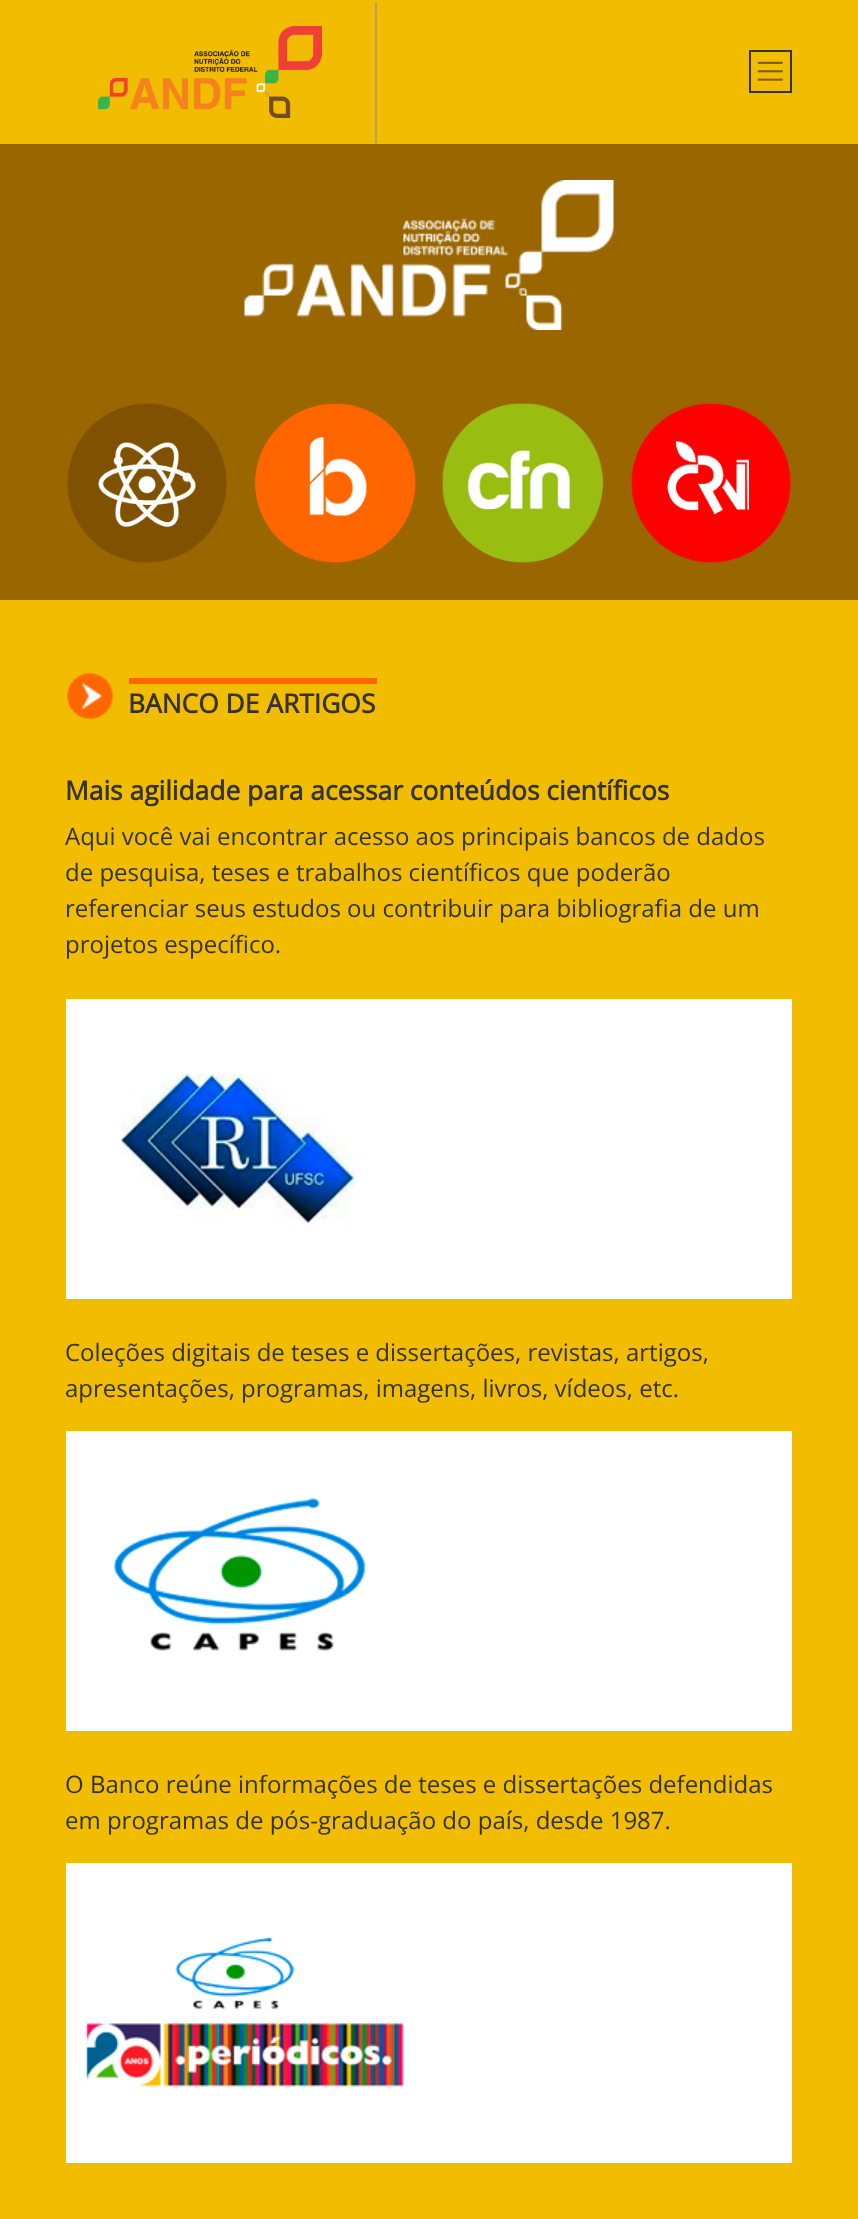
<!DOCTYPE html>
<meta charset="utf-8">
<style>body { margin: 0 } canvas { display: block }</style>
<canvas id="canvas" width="858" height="2219"></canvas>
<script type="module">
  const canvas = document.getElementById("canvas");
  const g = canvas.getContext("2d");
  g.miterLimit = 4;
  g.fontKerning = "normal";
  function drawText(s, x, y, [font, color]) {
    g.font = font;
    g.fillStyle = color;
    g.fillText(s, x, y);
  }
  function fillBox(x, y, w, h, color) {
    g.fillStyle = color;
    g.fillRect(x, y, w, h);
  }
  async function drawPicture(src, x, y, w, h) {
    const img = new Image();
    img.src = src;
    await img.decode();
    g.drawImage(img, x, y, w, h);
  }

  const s1 = ["bold 26.4px Open Sans", "#333333"];
  const s2 = ["24px Open Sans", "#333333"];

  fillBox(0, 0, 858, 2219, "#996600");
  fillBox(0, 0, 858, 144, "#F2BC00");
  fillBox(375, 2, 2, 141, "#B5A15F");
  await drawPicture("pic1.png", 98, 26, 224, 92);
  g.strokeStyle = "#333333";
  g.lineWidth = 2;
  g.strokeRect(750, 51, 41, 41);
  await drawPicture("pic2.png", 757, 61, 26, 20);
  await drawPicture("pic3.png", 244, 180, 370, 150);
  await drawPicture("pic4.png", 67, 403, 160, 160);
  await drawPicture("pic5.png", 255, 403, 161, 160);
  await drawPicture("pic6.png", 442, 403, 161, 160);
  await drawPicture("pic7.png", 631, 403, 160, 160);
  fillBox(0, 600, 858, 1619, "#F2BC00");
  await drawPicture("pic8.png", 67, 673, 46, 46);
  drawText("BANCO DE ARTIGOS", 128, 713, s1);
  fillBox(129, 678, 248, 6, "#FF6600");
  drawText("Mais agilidade para acessar conteúdos científicos", 65, 800, s1);
  drawText("Aqui você vai encontrar acesso aos principais bancos de dados", 65, 845, s2);
  drawText("de pesquisa, teses e trabalhos científicos que poderão", 65, 881, s2);
  drawText("referenciar seus estudos ou contribuir para bibliografia de um", 65, 917, s2);
  drawText("projetos específico.", 65, 953, s2);
  fillBox(66, 999, 726, 300, "#FFFFFF");
  await drawPicture("pic9.png", 121, 1073, 235, 150);
  drawText("Coleções digitais de teses e dissertações, revistas, artigos,", 65, 1361, s2);
  drawText("apresentações, programas, imagens, livros, vídeos, etc.", 65, 1397, s2);
  fillBox(66, 1431, 726, 300, "#FFFFFF");
  await drawPicture("pic10.png", 113, 1498, 254, 154);
  drawText("O Banco reúne informações de teses e dissertações defendidas", 65, 1793, s2);
  drawText("em programas de pós-graduação do país, desde 1987.", 65, 1829, s2);
  fillBox(66, 1863, 726, 300, "#FFFFFF");
  await drawPicture("pic11.png", 85, 1937, 319, 150);
</script>
